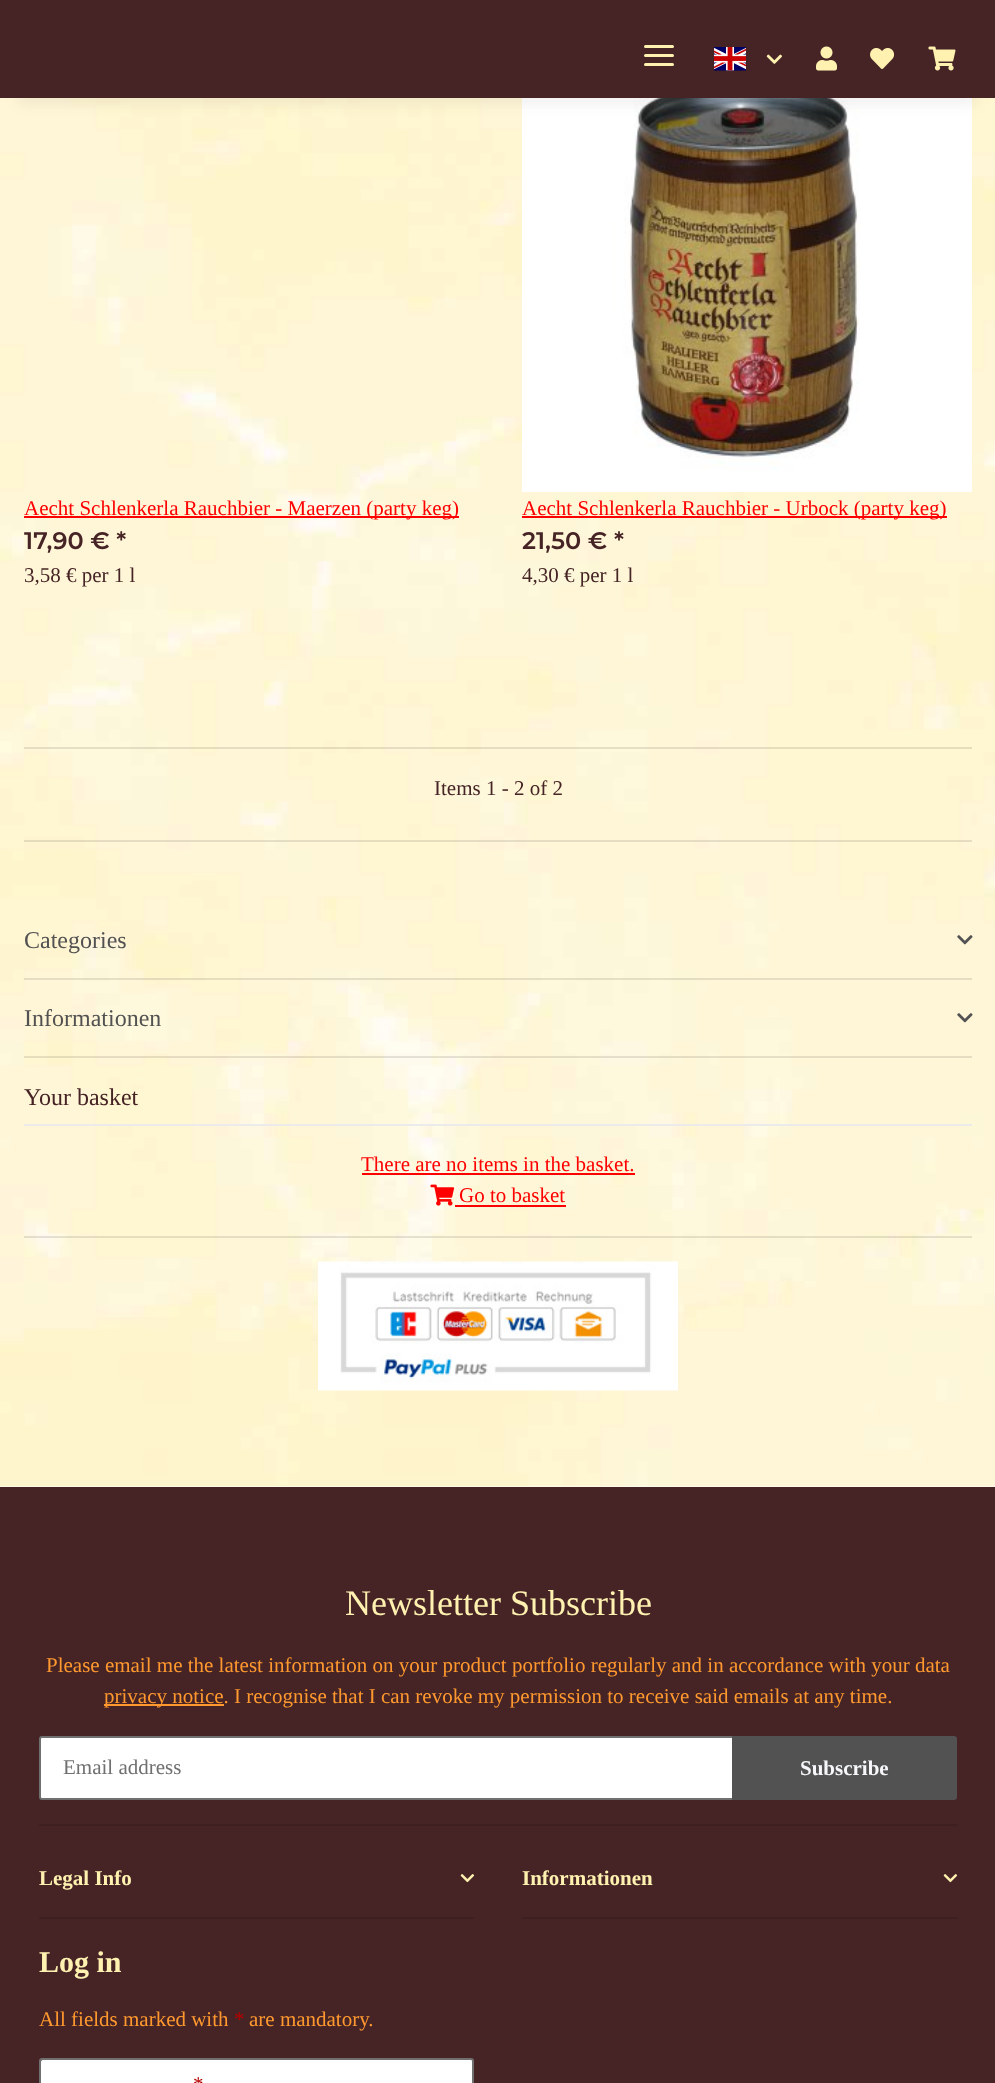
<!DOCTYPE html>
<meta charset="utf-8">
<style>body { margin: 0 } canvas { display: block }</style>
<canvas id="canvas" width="995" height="2083"></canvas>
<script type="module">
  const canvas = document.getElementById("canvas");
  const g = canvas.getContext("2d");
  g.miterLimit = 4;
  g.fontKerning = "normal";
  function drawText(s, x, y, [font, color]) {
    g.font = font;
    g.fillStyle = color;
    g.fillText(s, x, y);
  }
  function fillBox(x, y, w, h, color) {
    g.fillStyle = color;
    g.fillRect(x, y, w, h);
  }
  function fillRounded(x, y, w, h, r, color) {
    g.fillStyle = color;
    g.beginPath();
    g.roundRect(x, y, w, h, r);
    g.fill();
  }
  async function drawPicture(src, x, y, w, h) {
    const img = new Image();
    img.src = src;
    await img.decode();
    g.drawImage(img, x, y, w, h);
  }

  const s1 = ["21px Liberation Serif", "#FF0000"];
  const s2 = ["600 24px Montserrat", "#462425"];
  const s3 = ["21px Liberation Serif", "#462425"];
  const s4 = ["24px Liberation Serif", "#525252"];
  const s5 = ["24px Liberation Serif", "#462425"];
  const s6 = ["36px Liberation Serif", "#FFF2B0"];
  const s7 = ["21px Liberation Serif", "#FF992F"];
  const s8 = ["21px Liberation Serif", "#707070"];
  const s9 = ["bold 21px Liberation Serif", "#F5F7FA"];
  const s10 = ["bold 21px Liberation Serif", "#FFF2B0"];
  const s11 = ["bold 30px Liberation Serif", "#FFF2B0"];
  const s12 = ["21px Liberation Serif", "#B90000"];

  fillBox(0, 0, 995, 2083, "#FFFFFF");
  await drawPicture("pic6.png", 0, 98, 995, 1389);
  await drawPicture("pic7.png", 522, 98, 450, 394);
  g.fillStyle = "rgba(0, 0, 0, 0.06)";
  g.filter = "blur(7px)";
  g.beginPath();
  g.rect(18, 42, 960, 62);
  g.fill();
  g.filter = "none";
  fillBox(0, 0, 995, 98, "#462425");
  fillRounded(644, 54, 30, 3, 1.5, "#FFF2B0");
  fillRounded(644, 45, 30, 3, 1.5, "#FFF2B0");
  fillRounded(644, 63, 30, 3, 1.5, "#FFF2B0");
  await drawPicture("pic1.png", 714, 47, 32, 24);
  await drawPicture("pic2.png", 766, 54, 16, 10);
  await drawPicture("pic3.png", 816, 46, 21, 25);
  await drawPicture("pic4.png", 870, 48, 25, 21);
  await drawPicture("pic5.png", 928, 46, 28, 25);
  fillBox(24, 516, 435, 2, "#FF0000");
  drawText("Aecht Schlenkerla Rauchbier - Maerzen (party keg)", 24, 515, s1);
  drawText("17,90 € *", 24, 549, s2);
  drawText("3,58 € per 1 l", 24, 582, s3);
  fillBox(522, 516, 425, 2, "#FF0000");
  drawText("Aecht Schlenkerla Rauchbier - Urbock (party keg)", 522, 515, s1);
  drawText("21,50 € *", 522, 549, s2);
  drawText("4,30 € per 1 l", 522, 582, s3);
  fillBox(24, 747, 948, 2, "rgba(0, 0, 0, 0.1)");
  drawText("Items 1 - 2 of 2", 434, 795, s3);
  fillBox(24, 840, 948, 2, "rgba(0, 0, 0, 0.1)");
  drawText("Categories", 24, 948, s4);
  await drawPicture("pic8.png", 957, 935, 16, 10);
  fillBox(24, 978, 948, 2, "rgba(0, 0, 0, 0.1)");
  drawText("Informationen", 24, 1026, s4);
  await drawPicture("pic8.png", 957, 1013, 16, 10);
  fillBox(24, 1056, 948, 2, "rgba(0, 0, 0, 0.1)");
  fillBox(24, 1124, 948, 2, "#EBEBEB");
  drawText("Your basket", 24, 1105, s5);
  drawText("There are no items in the basket.", 361, 1171, s1);
  fillBox(362, 1173, 273, 2, "#FF0000");
  await drawPicture("pic9.png", 430, 1184, 25, 22);
  drawText("Go to basket", 459, 1202, s1);
  fillBox(455, 1205, 111, 2, "#FF0000");
  fillBox(24, 1236, 948, 2, "rgba(0, 0, 0, 0.1)");
  await drawPicture("pic10.png", 318, 1261, 360, 130);
  fillBox(0, 1487, 995, 596, "#462425");
  drawText("Newsletter Subscribe", 345, 1615, s6);
  drawText("Please email me the latest information on your product portfolio regularly and in accordance with your data", 46, 1672, s7);
  fillBox(104, 1704, 120, 2, "#FF992F");
  drawText("privacy notice. I recognise that I can revoke my permission to receive said emails at any time.", 104, 1703, s7);
  fillBox(41, 1738, 691, 60, "#FFFFFF");
  g.beginPath();
  g.roundRect(40, 1737, 693, 62, [2, 0, 0, 2]);
  g.strokeStyle = "#707070";
  g.lineWidth = 2;
  g.stroke();
  drawText("Email address", 63, 1774, s8);
  g.fillStyle = "#525252";
  g.beginPath();
  g.roundRect(733, 1737, 223, 62, [0, 2, 2, 0]);
  g.fill();
  g.strokeStyle = "#525252";
  g.stroke();
  drawText("Subscribe", 800, 1775, s9);
  fillBox(39, 1824, 918, 2, "#3F2021");
  drawText("Legal Info", 39, 1885, s10);
  await drawPicture("pic11.png", 460, 1874, 15, 9);
  fillBox(39, 1917, 435, 2, "#3F2021");
  drawText("Informationen", 522, 1885, s10);
  await drawPicture("pic11.png", 943, 1874, 15, 9);
  fillBox(522, 1917, 435, 2, "#3F2021");
  drawText("Log in", 39, 1972, s11);
  drawText("All fields marked with", 39, 2026, s7);
  drawText("*", 234, 2026, s12);
  drawText("are mandatory.", 249, 2026, s7);
  fillRounded(41, 2060, 432, 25, 1.5, "#FFFFFF");
  g.beginPath();
  g.roundRect(40, 2059, 433, 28, 2);
  g.strokeStyle = "#707070";
  g.stroke();
  drawText("*", 193, 2091, s12);
</script>
